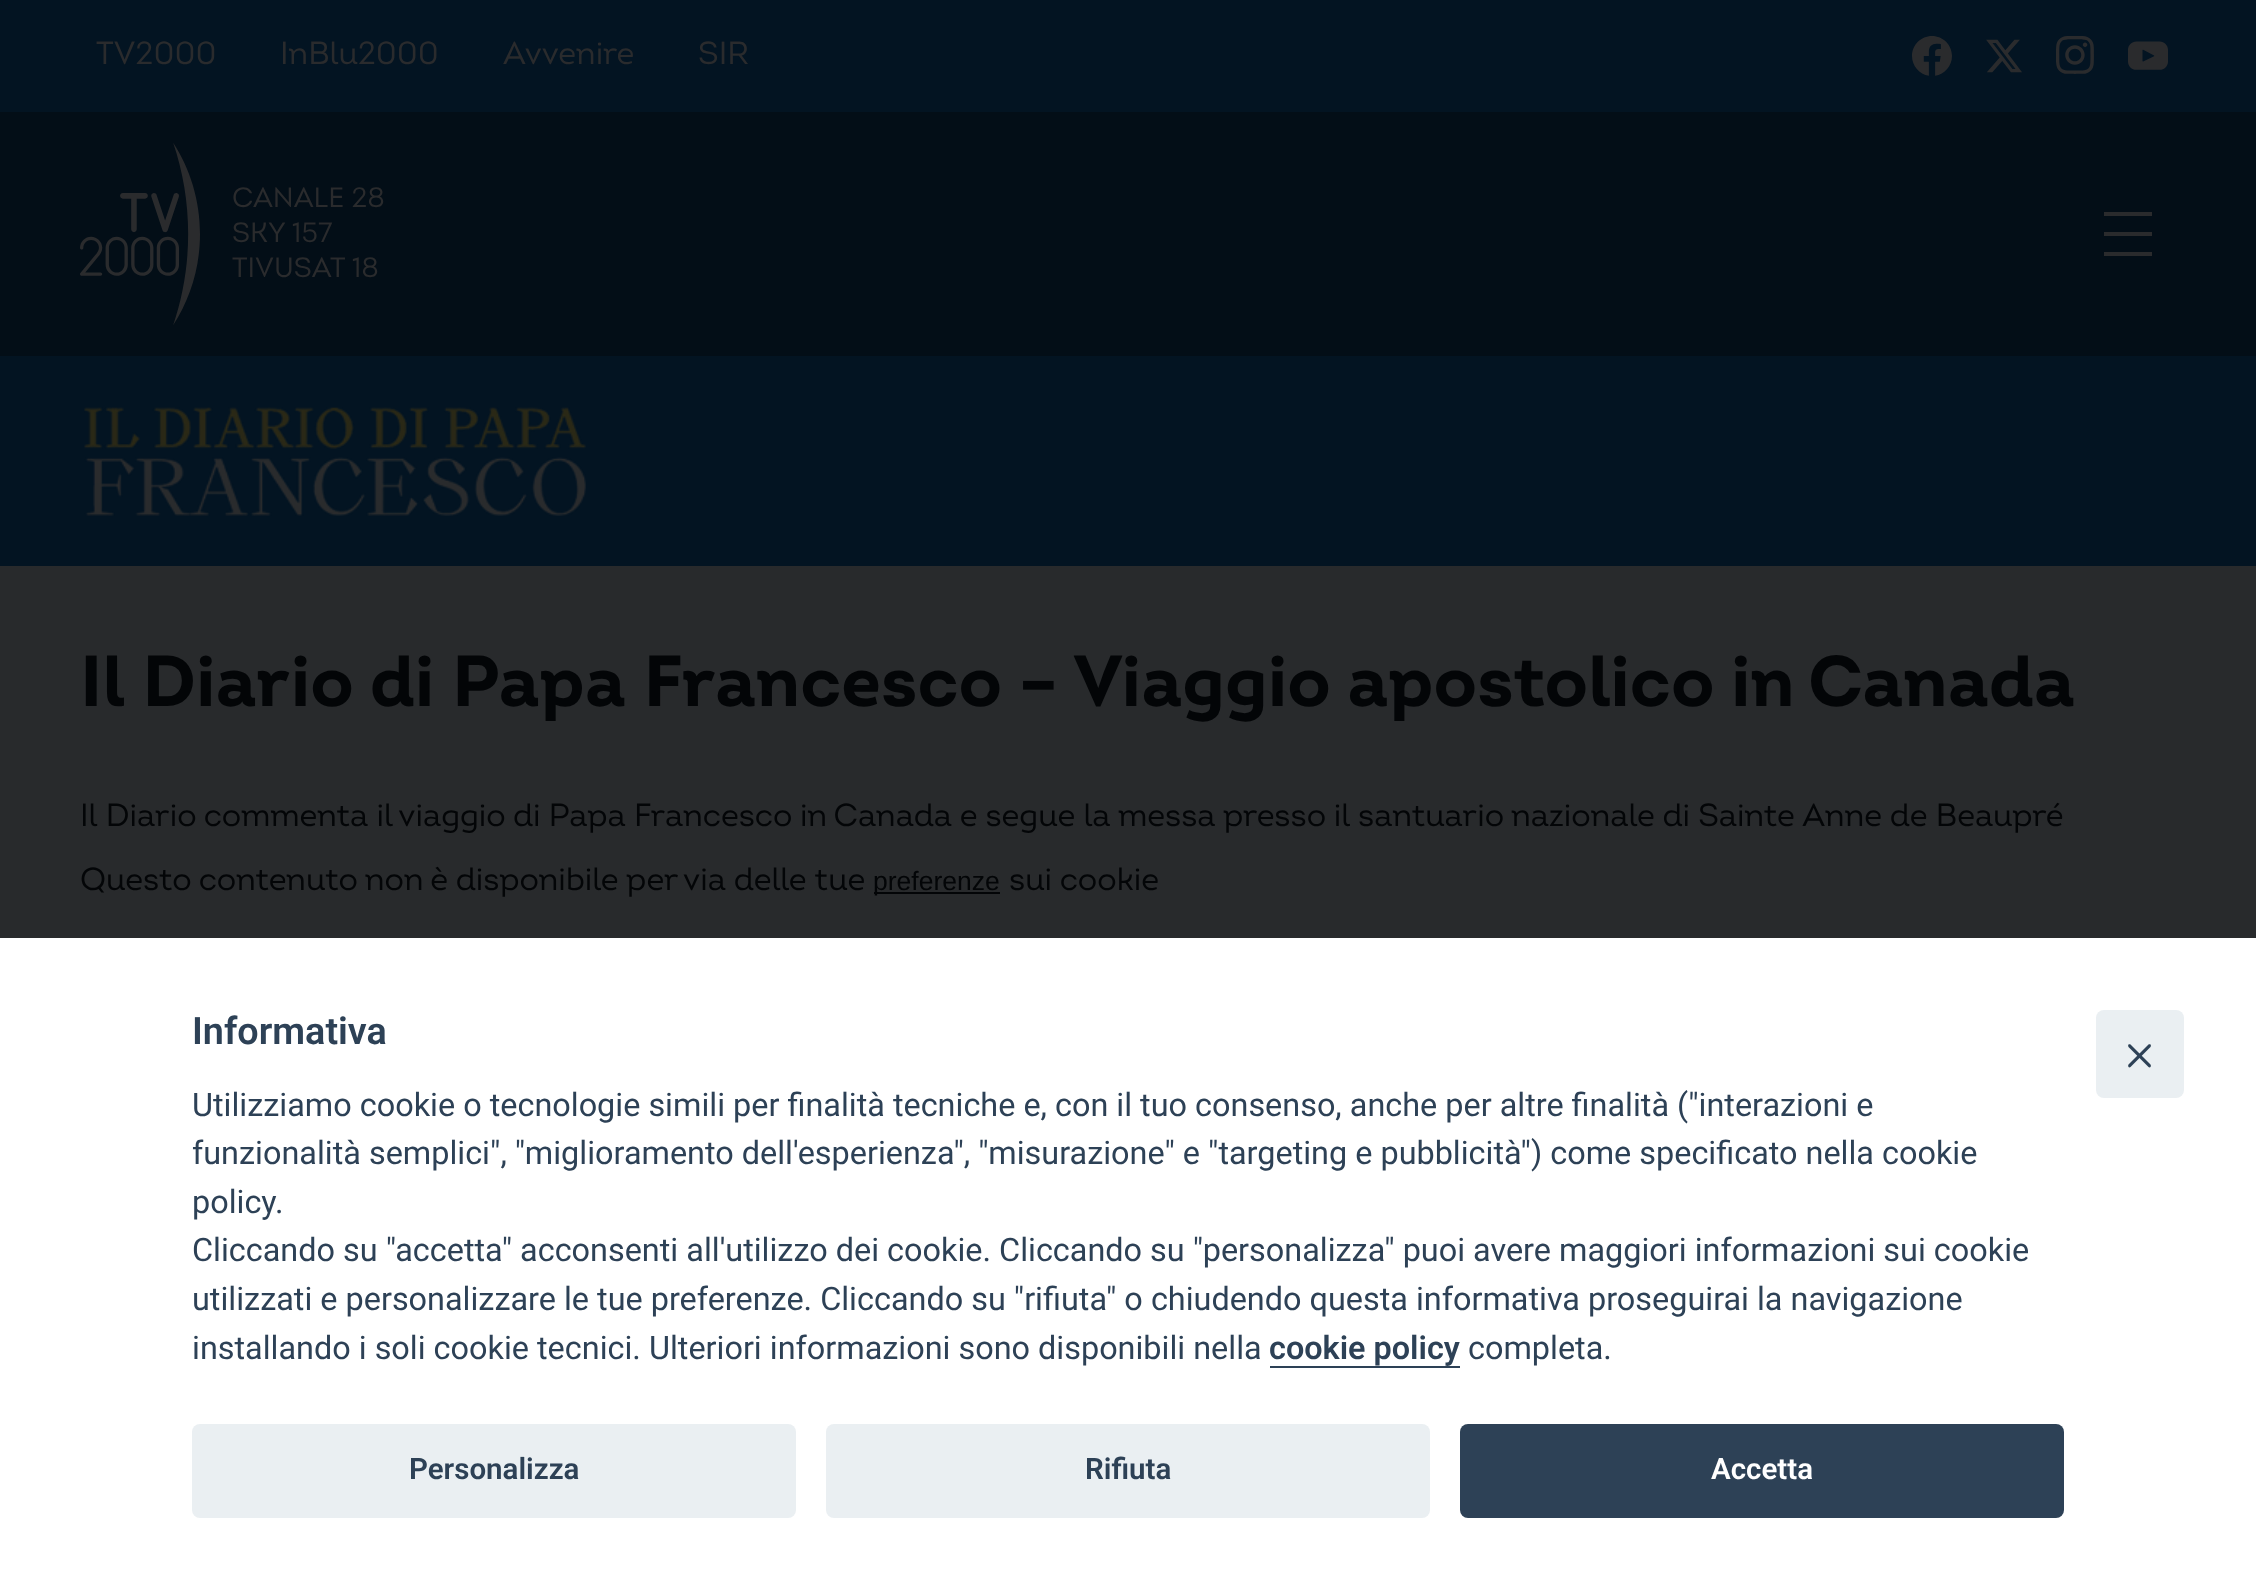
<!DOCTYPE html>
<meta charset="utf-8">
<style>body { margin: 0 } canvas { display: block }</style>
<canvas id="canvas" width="2256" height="1590"></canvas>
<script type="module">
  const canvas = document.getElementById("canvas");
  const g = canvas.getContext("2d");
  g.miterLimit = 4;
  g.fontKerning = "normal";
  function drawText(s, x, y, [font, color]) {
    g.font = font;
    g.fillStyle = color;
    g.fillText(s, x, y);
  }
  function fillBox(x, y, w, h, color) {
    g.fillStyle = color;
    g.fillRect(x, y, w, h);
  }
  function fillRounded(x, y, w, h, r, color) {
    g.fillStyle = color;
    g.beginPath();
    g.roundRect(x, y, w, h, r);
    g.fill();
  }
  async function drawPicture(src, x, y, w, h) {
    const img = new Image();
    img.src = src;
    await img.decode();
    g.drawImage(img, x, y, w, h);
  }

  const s1 = ["32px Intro", "#2A2B2D"];
  const s2 = ["28px Intro", "#2A2B2D"];
  const s3 = ["bold 72px Intro", "#030507"];
  const s4 = ["32px Intro", "#030507"];
  const s5 = ["26.5px Liberation Sans", "#030507"];
  const s6 = ["600 37.75px Roboto", "#2D4156"];
  const s7 = ["32.4px Roboto", "#2D4156"];
  const s8 = ["600 32.4px Roboto", "#2D4156"];
  const s9 = ["600 29.5px Roboto", "#2D4156"];
  const s10 = ["600 29.5px Roboto", "#FFFFFF"];

  fillBox(0, 0, 2256, 1590, "#031422");
  drawText("TV2000", 96, 64, s1);
  drawText("InBlu2000", 280, 64, s1);
  drawText("Avvenire", 503, 64, s1);
  drawText("SIR", 698, 64, s1);
  await drawPicture("pic1.png", 1912, 36, 40, 40);
  await drawPicture("pic2.png", 1986, 39, 36, 34);
  await drawPicture("pic3.png", 2056, 36, 38, 38);
  await drawPicture("pic4.png", 2128, 41, 40, 29);
  fillBox(0, 112, 2256, 244, "#030E17");
  await drawPicture("pic5.png", 80, 143, 120, 182);
  drawText("CANALE 28", 232, 207, s2);
  drawText("SKY 157", 232, 242, s2);
  drawText("TIVUSAT 18", 232, 277, s2);
  fillBox(2104, 212, 48, 4, "#2A2B2D");
  fillBox(2104, 232, 48, 4, "#2A2B2D");
  fillBox(2104, 252, 48, 4, "#2A2B2D");
  await drawPicture("pic6.png", 84, 407, 502, 109);
  fillBox(0, 566, 2256, 372, "#282A2C");
  drawText("Il Diario di Papa Francesco – Viaggio apostolico in Canada", 80, 706, s3);
  drawText("Il Diario commenta il viaggio di Papa Francesco in Canada e segue la messa presso il santuario nazionale di Sainte Anne de Beaupré", 80, 826, s4);
  drawText("Questo contenuto non è disponibile per via delle tue", 80, 890, s4);
  fillBox(874, 892, 126, 2, "#030507");
  drawText("preferenze", 873, 890, s5);
  drawText("sui cookie", 1009, 890, s4);
  fillBox(0, 938, 2256, 652, "#FFFFFF");
  drawText("Informativa", 192, 1044, s6);
  drawText("Utilizziamo cookie o tecnologie simili per finalità tecniche e, con il tuo consenso, anche per altre finalità (\"interazioni e", 192, 1116, s7);
  drawText("funzionalità semplici\", \"miglioramento dell'esperienza\", \"misurazione\" e \"targeting e pubblicità\") come specificato nella cookie", 192, 1164, s7);
  drawText("policy.", 192, 1213, s7);
  drawText("Cliccando su \"accetta\" acconsenti all'utilizzo dei cookie. Cliccando su \"personalizza\" puoi avere maggiori informazioni sui cookie", 192, 1261, s7);
  drawText("utilizzati e personalizzare le tue preferenze. Cliccando su \"rifiuta\" o chiudendo questa informativa proseguirai la navigazione", 192, 1310, s7);
  drawText("installando i soli cookie tecnici. Ulteriori informazioni sono disponibili nella", 192, 1359, s7);
  drawText("cookie policy", 1269, 1359, s8);
  fillBox(1270, 1366, 190, 2, "#2D4156");
  drawText("completa.", 1468, 1359, s7);
  fillRounded(192, 1424, 604, 94, 8, "#EAEFF2");
  drawText("Personalizza", 409, 1479, s9);
  fillRounded(826, 1424, 604, 94, 8, "#EAEFF2");
  drawText("Rifiuta", 1085, 1479, s9);
  fillRounded(1460, 1424, 604, 94, 8, "#2D4156");
  drawText("Accetta", 1711, 1479, s10);
  fillRounded(2096, 1010, 88, 88, 8, "#EAEFF2");
  g.fillStyle = "#2D4156";
  g.beginPath();
  g.moveTo(2150.5, 1044.5);
  g.bezierCurveTo(2151, 1045, 2151, 1046, 2150.5, 1047);
  g.lineTo(2130.5, 1067);
  g.bezierCurveTo(2130, 1067.5, 2129, 1067.5, 2128.5, 1067);
  g.bezierCurveTo(2128, 1066, 2128, 1065.5, 2128.5, 1064.5);
  g.lineTo(2148.5, 1044.5);
  g.bezierCurveTo(2149, 1044, 2150, 1044, 2150.5, 1044.5);
  g.closePath();
  g.fill();
  g.beginPath();
  g.moveTo(2128.5, 1044.5);
  g.bezierCurveTo(2129, 1044, 2130, 1044, 2130.5, 1044.5);
  g.lineTo(2150.5, 1064.5);
  g.bezierCurveTo(2151, 1065.5, 2151, 1066, 2150.5, 1067);
  g.bezierCurveTo(2150, 1067.5, 2149, 1067.5, 2148.5, 1067);
  g.lineTo(2128.5, 1047);
  g.bezierCurveTo(2128, 1046, 2128, 1045, 2128.5, 1044.5);
  g.closePath();
  g.fill();
</script>
